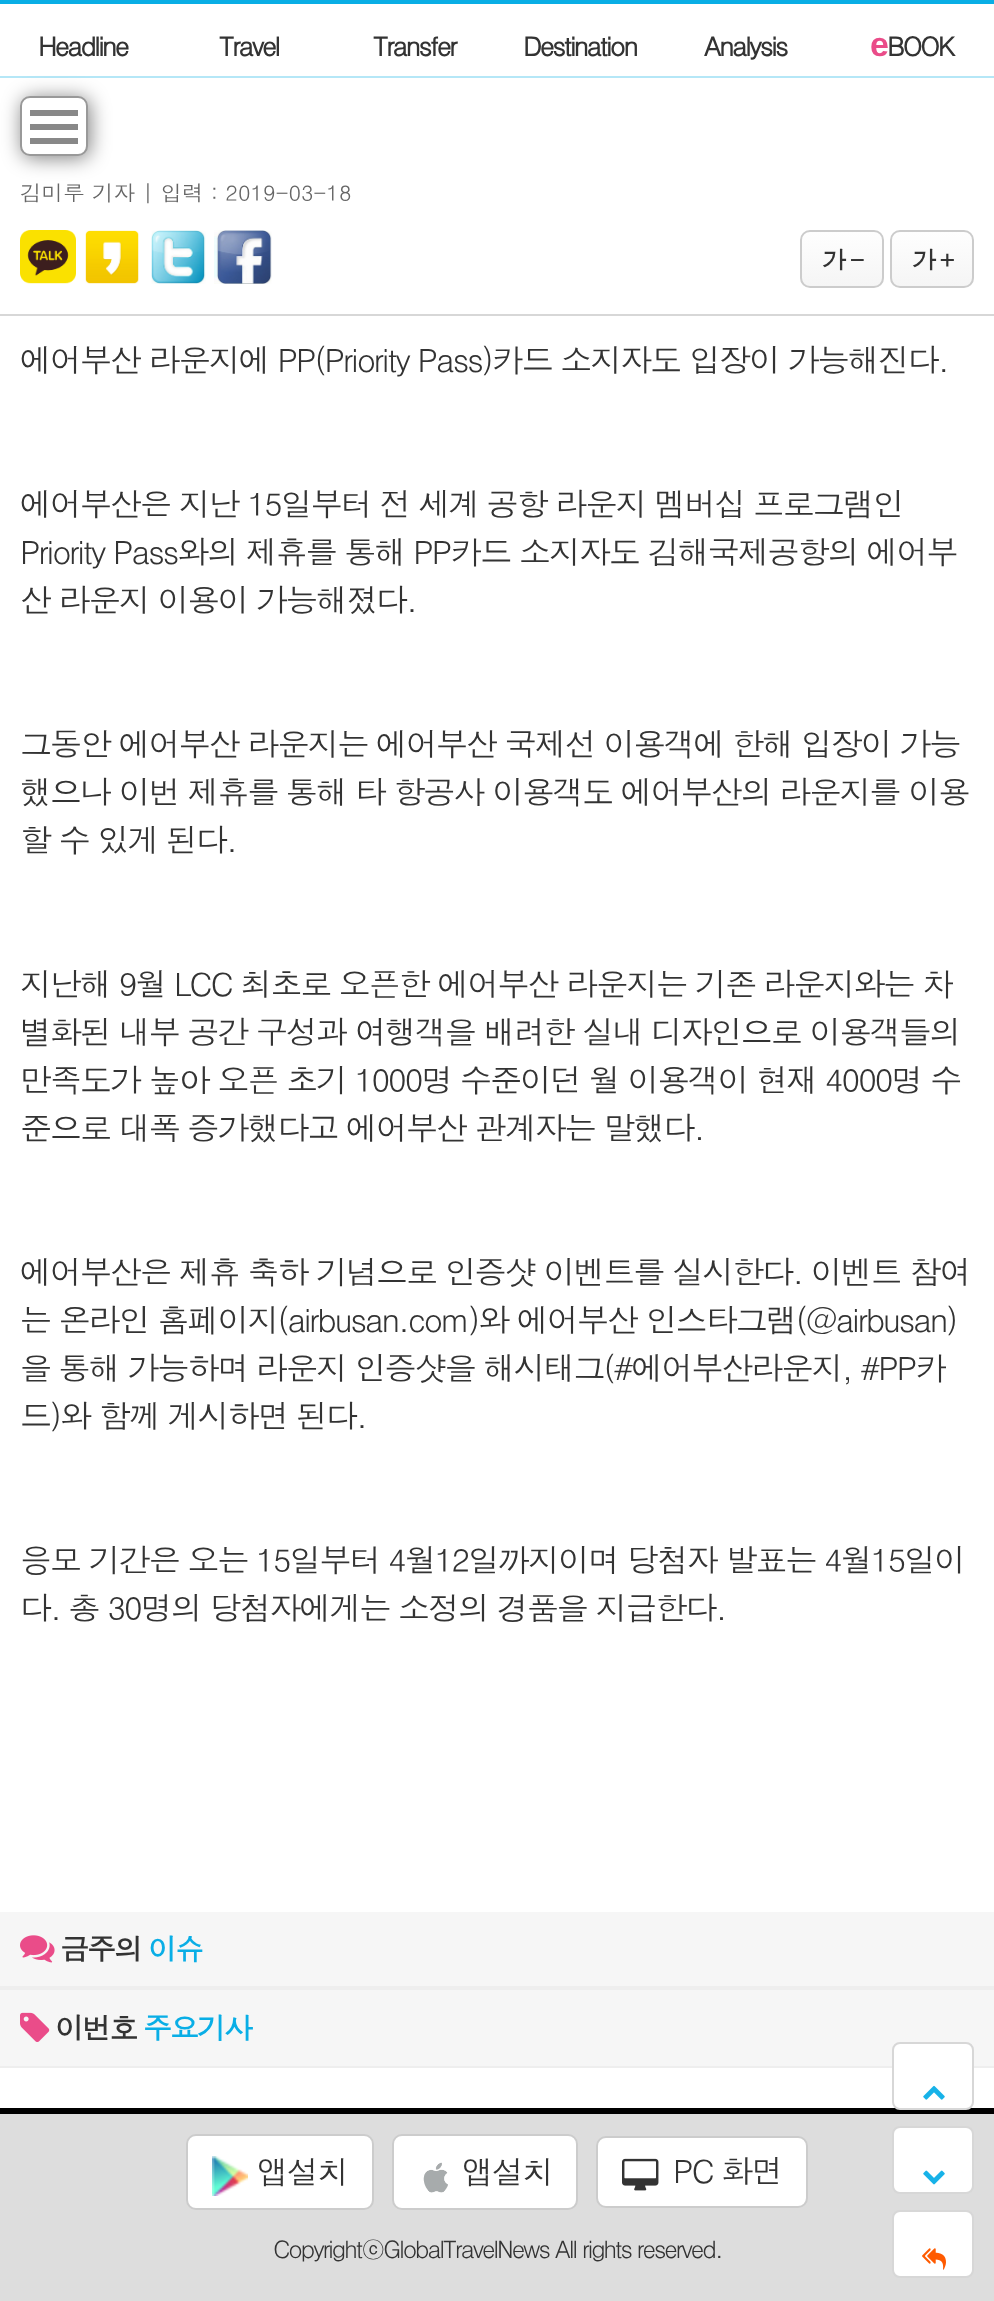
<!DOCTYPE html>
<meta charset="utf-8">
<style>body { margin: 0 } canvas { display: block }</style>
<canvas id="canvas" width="994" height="2301"></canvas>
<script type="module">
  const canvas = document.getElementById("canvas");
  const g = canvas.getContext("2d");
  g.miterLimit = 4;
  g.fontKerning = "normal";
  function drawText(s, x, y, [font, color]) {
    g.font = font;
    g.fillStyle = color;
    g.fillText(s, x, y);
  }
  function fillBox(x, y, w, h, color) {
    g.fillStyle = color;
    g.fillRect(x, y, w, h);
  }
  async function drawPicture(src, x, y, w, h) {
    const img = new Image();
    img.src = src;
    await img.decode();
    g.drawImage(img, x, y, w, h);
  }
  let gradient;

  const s1 = ["bold 26px Dotum", "#333333"];
  const s2 = ["bold 34px Liberation Sans", "#EA4C89"];
  const s3 = ["21.6px Dotum", "#666666"];
  const s4 = ["bold 24px Dotum", "#333333"];
  const s5 = ["32px Dotum", "#333333"];
  const s6 = ["bold 29px Dotum", "#333333"];
  const s7 = ["bold 29px Dotum", "#09AEE6"];
  const s8 = ["24px Dotum", "#333333"];

  fillBox(0, 0, 994, 2301, "#FFFFFF");
  fillBox(0, 76, 994, 2, "#B5E7F7");
  fillBox(0, 0, 994, 4, "#09AEE5");
  g.letterSpacing = "-2px";
  drawText("Headline", 38, 56, s1);
  drawText("Travel", 219, 56, s1);
  drawText("Transfer", 373, 56, s1);
  drawText("Destination", 523, 56, s1);
  drawText("Analysis", 704, 56, s1);
  drawText("e", 870, 56, s2);
  drawText("BOOK", 887, 56, s1);
  g.fillStyle = "rgba(0, 0, 0, 0.5)";
  g.filter = "blur(10px)";
  g.beginPath();
  g.roundRect(22, 98, 68, 60, 10);
  g.fill();
  g.filter = "none";
  g.fillStyle = "#FFFFFF";
  g.beginPath();
  g.roundRect(21, 97, 66, 58, 9);
  g.fill();
  g.strokeStyle = "#999999";
  g.lineWidth = 2;
  g.stroke();
  fillBox(30, 110, 48, 6, "#888888");
  fillBox(30, 124, 48, 6, "#888888");
  fillBox(30, 138, 48, 6, "#888888");
  fillBox(0, 314, 994, 2, "#D7D7D7");
  g.letterSpacing = "0px";
  drawText("김미루 기자 | 입력 : 2019-03-18", 20, 201, s3);
  await drawPicture("pic1.png", 20, 230, 56, 54);
  await drawPicture("pic2.png", 85, 230, 54, 54);
  await drawPicture("pic3.png", 151, 230, 55, 54);
  await drawPicture("pic4.png", 214, 230, 58, 54);
  g.save();
  g.beginPath();
  g.roundRect(800, 230, 84, 58, 10);
  g.clip();
  gradient = g.createLinearGradient(842, 232, 842, 286);
  gradient.addColorStop(0, "#FEFEFE");
  gradient.addColorStop(1, "#F5F5F5");
  g.fillStyle = gradient;
  g.fillRect(800, 232, 84, 54);
  g.restore();
  g.beginPath();
  g.roundRect(801, 231, 82, 56, 9);
  g.strokeStyle = "#CCCCCC";
  g.stroke();
  g.letterSpacing = "-2px";
  drawText("가 -", 822, 269, s4);
  g.save();
  g.beginPath();
  g.roundRect(890, 230, 84, 58, 10);
  g.clip();
  gradient = g.createLinearGradient(932, 232, 932, 286);
  gradient.addColorStop(0, "#FEFEFE");
  gradient.addColorStop(1, "#F5F5F5");
  g.fillStyle = gradient;
  g.fillRect(890, 232, 84, 54);
  g.restore();
  g.beginPath();
  g.roundRect(891, 231, 82, 56, 9);
  g.stroke();
  drawText("가 +", 912, 269, s4);
  drawText("에어부산 라운지에 PP(Priority Pass)카드 소지자도 입장이 가능해진다.", 20, 372, s5);
  drawText("에어부산은 지난 15일부터 전 세계 공항 라운지 멤버십 프로그램인", 20, 516, s5);
  drawText("Priority Pass와의 제휴를 통해 PP카드 소지자도 김해국제공항의 에어부", 20, 564, s5);
  drawText("산 라운지 이용이 가능해졌다.", 20, 612, s5);
  drawText("그동안 에어부산 라운지는 에어부산 국제선 이용객에 한해 입장이 가능", 20, 756, s5);
  drawText("했으나 이번 제휴를 통해 타 항공사 이용객도 에어부산의 라운지를 이용", 20, 804, s5);
  drawText("할 수 있게 된다.", 20, 852, s5);
  drawText("지난해 9월 LCC 최초로 오픈한 에어부산 라운지는 기존 라운지와는 차", 20, 996, s5);
  drawText("별화된 내부 공간 구성과 여행객을 배려한 실내 디자인으로 이용객들의", 20, 1044, s5);
  drawText("만족도가 높아 오픈 초기 1000명 수준이던 월 이용객이 현재 4000명 수", 20, 1092, s5);
  drawText("준으로 대폭 증가했다고 에어부산 관계자는 말했다.", 20, 1140, s5);
  drawText("에어부산은 제휴 축하 기념으로 인증샷 이벤트를 실시한다. 이벤트 참여", 20, 1284, s5);
  drawText("는 온라인 홈페이지(airbusan.com)와 에어부산 인스타그램(@airbusan)", 20, 1332, s5);
  drawText("을 통해 가능하며 라운지 인증샷을 해시태그(#에어부산라운지, #PP카", 20, 1380, s5);
  drawText("드)와 함께 게시하면 된다.", 20, 1428, s5);
  drawText("응모 기간은 오는 15일부터 4월12일까지이며 당첨자 발표는 4월15일이", 20, 1572, s5);
  drawText("다. 총 30명의 당첨자에게는 소정의 경품을 지급한다.", 20, 1620, s5);
  fillBox(0, 1986, 994, 4, "#EEEEEE");
  fillBox(0, 1912, 994, 74, "#F6F6F6");
  await drawPicture("pic5.png", 20, 1935, 35, 28);
  drawText("금주의", 60, 1960, s6);
  drawText("이슈", 148, 1960, s7);
  fillBox(0, 1990, 994, 76, "#F6F6F6");
  fillBox(0, 2066, 994, 2, "#EEEEEE");
  await drawPicture("pic6.png", 20, 2012, 30, 30);
  drawText("이번호", 55, 2039, s6);
  drawText("주요기사", 143, 2039, s7);
  fillBox(0, 2108, 994, 6, "#000000");
  g.fillStyle = "#FFFFFF";
  g.beginPath();
  g.roundRect(893, 2043, 80, 66, 7);
  g.fill();
  g.strokeStyle = "#D7D7D7";
  g.stroke();
  await drawPicture("pic7.png", 923, 2085, 22, 15);
  fillBox(0, 2114, 994, 187, "#DDDDDD");
  g.fillStyle = "#FFFFFF";
  g.beginPath();
  g.roundRect(187, 2135, 186, 74, 9);
  g.fill();
  g.strokeStyle = "#CCCCCC";
  g.stroke();
  await drawPicture("pic8.png", 212, 2156, 36, 40);
  drawText("앱설치", 257, 2184, s5);
  g.fillStyle = "#FFFFFF";
  g.beginPath();
  g.roundRect(393, 2135, 184, 74, 9);
  g.fill();
  g.stroke();
  await drawPicture("pic9.png", 423, 2162, 25, 31);
  drawText("앱설치", 462, 2184, s5);
  g.fillStyle = "#FFFFFF";
  g.beginPath();
  g.roundRect(597, 2137, 210, 70, 9);
  g.fill();
  g.stroke();
  await drawPicture("pic10.png", 622, 2158, 37, 33);
  drawText("PC 화면", 673, 2183, s5);
  drawText("CopyrightⓒGlobalTravelNews All rights reserved.", 273, 2258, s8);
  g.fillStyle = "#FFFFFF";
  g.beginPath();
  g.roundRect(893, 2127, 80, 66, 7);
  g.fill();
  g.strokeStyle = "#D7D7D7";
  g.stroke();
  await drawPicture("pic11.png", 923, 2170, 22, 15);
  g.beginPath();
  g.roundRect(893, 2211, 80, 66, 7);
  g.fill();
  g.stroke();
  await drawPicture("pic12.png", 922, 2248, 24, 22);
</script>
